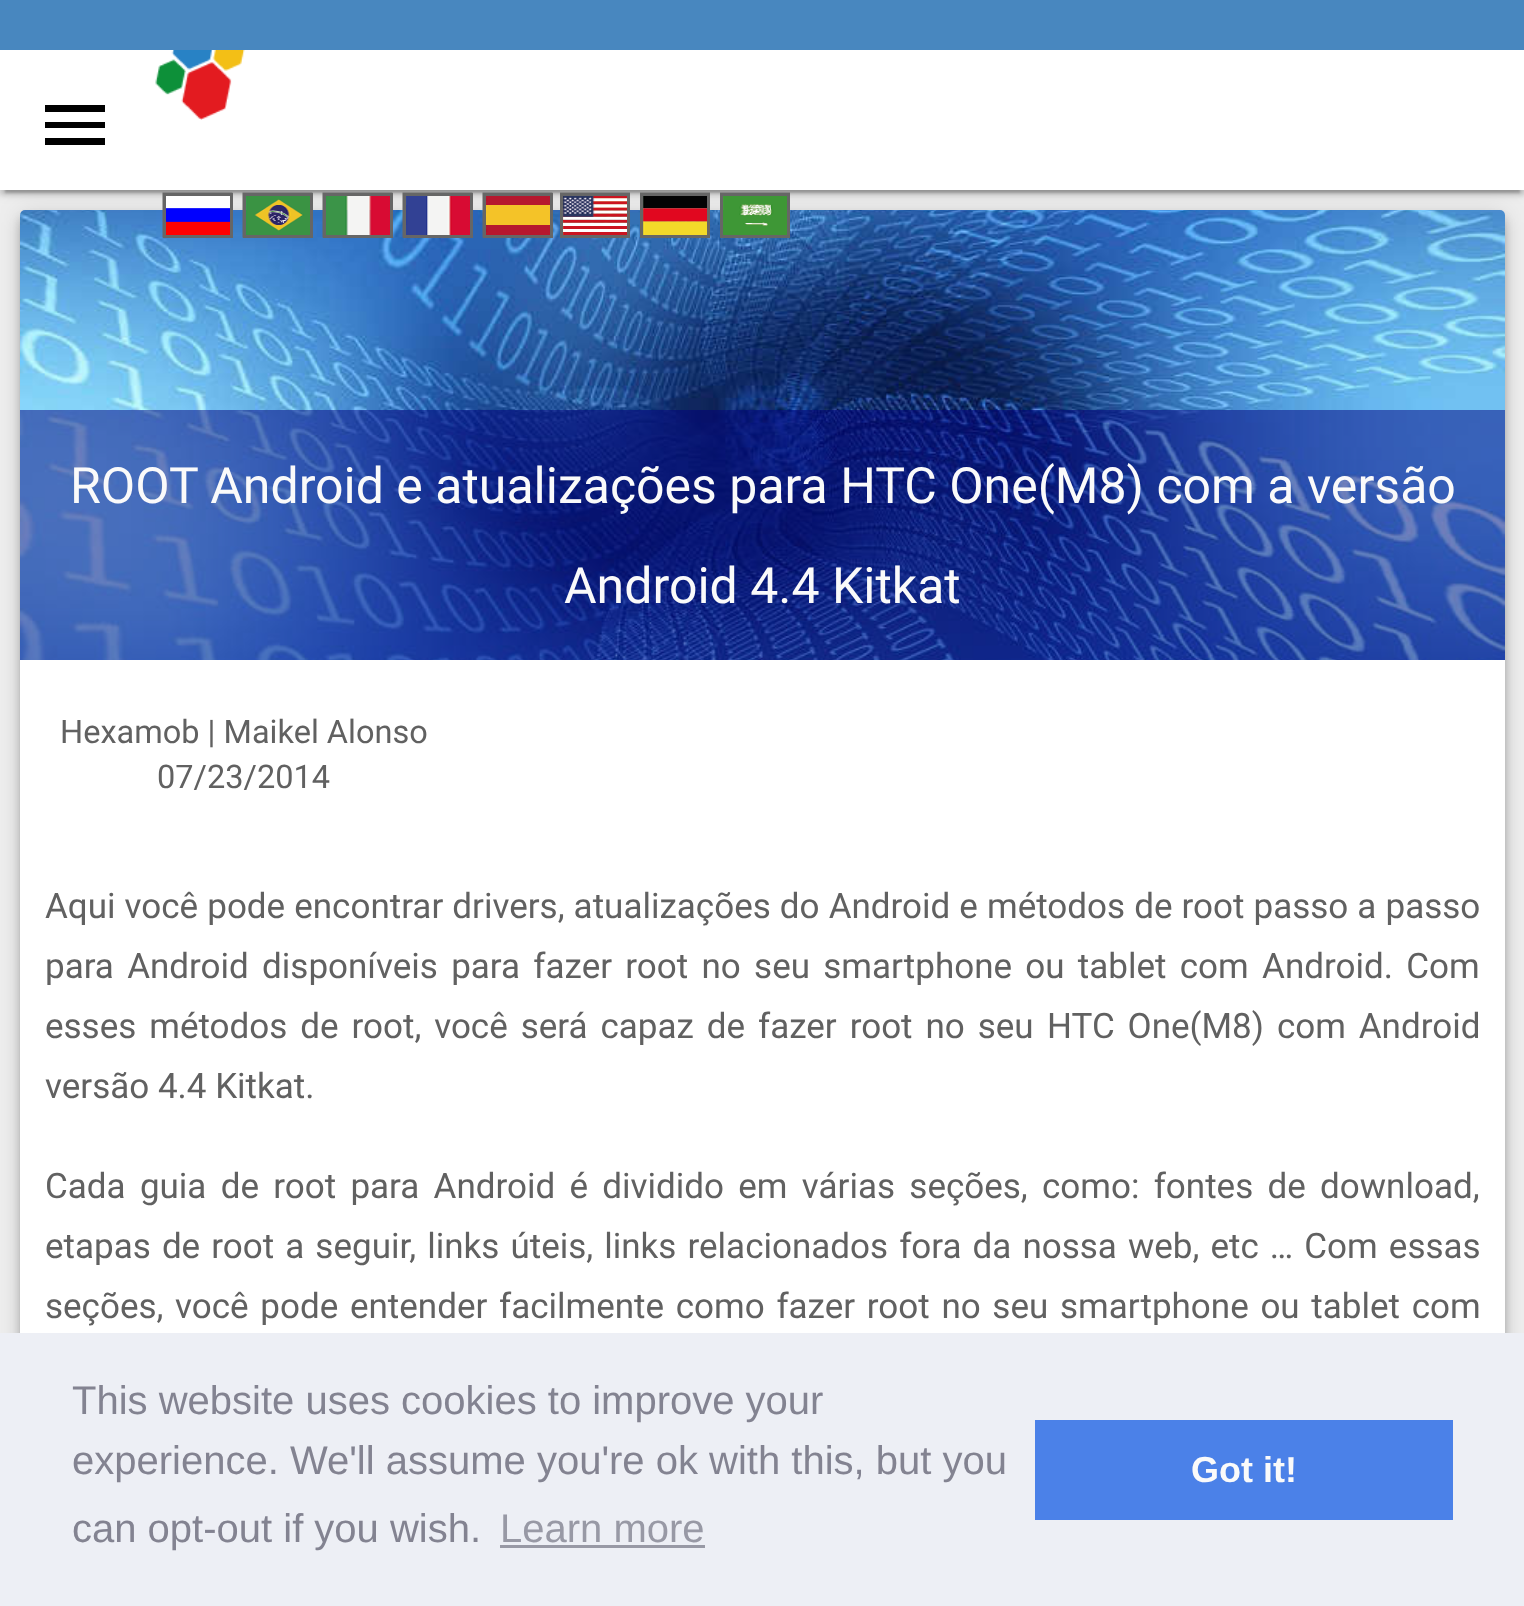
<!DOCTYPE html>
<meta charset="utf-8">
<style>body { margin: 0 } canvas { display: block }</style>
<canvas id="canvas" width="1524" height="1606"></canvas>
<script type="module">
  const canvas = document.getElementById("canvas");
  const g = canvas.getContext("2d");
  g.miterLimit = 4;
  g.fontKerning = "normal";
  function drawText(s, x, y, [font, color]) {
    g.font = font;
    g.fillStyle = color;
    g.fillText(s, x, y);
  }
  function fillBox(x, y, w, h, color) {
    g.fillStyle = color;
    g.fillRect(x, y, w, h);
  }
  function fillRounded(x, y, w, h, r, color) {
    g.fillStyle = color;
    g.beginPath();
    g.roundRect(x, y, w, h, r);
    g.fill();
  }
  async function drawPicture(src, x, y, w, h) {
    const img = new Image();
    img.src = src;
    await img.decode();
    g.drawImage(img, x, y, w, h);
  }

  const s1 = ["50px Roboto", "#FAFAFA"];
  const s2 = ["32.5px Roboto", "#616161"];
  const s3 = ["35px Roboto", "#616161"];
  const s4 = ["40px Liberation Sans", "#838391"];
  const s5 = ["40px Liberation Sans", "#9899A5"];
  const s6 = ["bold 36px Liberation Sans", "#FAFAFA"];

  fillBox(0, 0, 1524, 1606, "#4887BF");
  fillBox(0, 190, 1524, 1143, "#EEEEEE");
  g.fillStyle = "rgba(0, 0, 0, 0.2)";
  g.filter = "blur(5px)";
  g.beginPath();
  g.roundRect(23, 218, 1480, 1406, 2.5);
  g.fill();
  g.filter = "none";
  g.fillStyle = "rgba(0, 0, 0, 0.12)";
  g.filter = "blur(12.5px)";
  g.beginPath();
  g.roundRect(20, 213, 1485, 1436, 5);
  g.fill();
  g.filter = "none";
  g.fillStyle = "rgba(0, 0, 0, 0.14)";
  g.filter = "blur(6px)";
  g.beginPath();
  g.roundRect(20, 220, 1485, 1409, 5);
  g.fill();
  g.filter = "none";
  fillRounded(20, 210, 1485, 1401, 5, "#FFFFFF");
  await drawPicture("pic10.png", 20, 210, 1485, 450);
  g.save();
  g.beginPath();
  g.rect(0, 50, 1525, 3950);
  g.clip();
  g.fillStyle = "rgba(0, 0, 0, 0.12)";
  g.filter = "blur(6px)";
  g.beginPath();
  g.rect(0, 53, 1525, 140);
  g.fill();
  g.filter = "none";
  g.restore();
  g.fillStyle = "rgba(0, 0, 0, 0.2)";
  g.filter = "blur(1px)";
  g.beginPath();
  g.rect(5, 63, 1515, 130);
  g.fill();
  g.filter = "none";
  g.fillStyle = "rgba(0, 0, 0, 0.14)";
  g.filter = "blur(2.5px)";
  g.beginPath();
  g.rect(0, 55, 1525, 140);
  g.fill();
  g.filter = "none";
  fillBox(0, 50, 1524, 140, "#FFFFFF");
  g.fillStyle = "#000000";
  g.beginPath();
  g.moveTo(45, 105);
  g.lineTo(105, 105);
  g.lineTo(105, 112);
  g.lineTo(45, 112);
  g.closePath();
  g.moveTo(45, 128);
  g.lineTo(45, 122);
  g.lineTo(105, 122);
  g.lineTo(105, 128);
  g.closePath();
  g.moveTo(45, 145);
  g.lineTo(45, 138);
  g.lineTo(105, 138);
  g.lineTo(105, 145);
  g.closePath();
  g.fill();
  await drawPicture("pic1.png", 155, 50, 90, 70);
  await drawPicture("pic2.png", 162, 192, 71, 46);
  g.strokeStyle = "#666666";
  g.lineWidth = 3;
  g.strokeRect(164.5, 194.5, 67, 42);
  await drawPicture("pic3.png", 242, 192, 71, 46);
  g.strokeRect(244.5, 194.5, 67, 42);
  await drawPicture("pic4.png", 322, 192, 71, 46);
  g.strokeRect(324.5, 194.5, 67, 42);
  await drawPicture("pic5.png", 402, 192, 71, 46);
  g.strokeRect(404.5, 194.5, 67, 42);
  await drawPicture("pic6.png", 482, 192, 71, 46);
  g.strokeRect(484.5, 194.5, 67, 42);
  await drawPicture("pic7.png", 560, 192, 70, 43);
  g.strokeRect(561.5, 194.5, 67, 42);
  await drawPicture("pic8.png", 640, 192, 70, 43);
  g.strokeRect(641.5, 194.5, 67, 42);
  await drawPicture("pic9.png", 720, 192, 70, 43);
  g.strokeRect(721.5, 194.5, 67, 42);
  fillBox(20, 410, 1485, 250, "rgba(0, 0, 125, 0.5)");
  drawText("ROOT Android e atualizações para HTC One(M8) com a versão", 70, 503, s1);
  drawText("Android 4.4 Kitkat", 564, 603, s1);
  drawText("Hexamob | Maikel Alonso", 60, 743, s2);
  drawText("07/23/2014", 157, 788, s2);
  g.wordSpacing = "0.4px";
  drawText("Aqui você pode encontrar drivers, atualizações do Android e métodos de root passo a passo", 45, 918, s3);
  g.wordSpacing = "4.6px";
  drawText("para Android disponíveis para fazer root no seu smartphone ou tablet com Android. Com", 45, 978, s3);
  g.wordSpacing = "4.25px";
  drawText("esses métodos de root, você será capaz de fazer root no seu", 45, 1038, s3);
  drawText("HTC One(M8) com Android", 1047, 1038, s3);
  g.wordSpacing = "0px";
  drawText("versão 4.4 Kitkat.", 45, 1098, s3);
  g.wordSpacing = "5.6px";
  drawText("Cada guia de root para Android é dividido em várias seções, como: fontes de download,", 45, 1198, s3);
  g.wordSpacing = "2.4px";
  drawText("etapas de root a seguir, links úteis, links relacionados fora da nossa web, etc … Com essas", 45, 1258, s3);
  g.wordSpacing = "3px";
  drawText("seções, você pode entender facilmente como fazer root no seu smartphone ou tablet com", 45, 1318, s3);
  fillBox(0, 1333, 1524, 273, "#EDEFF5");
  g.wordSpacing = "0px";
  drawText("This website uses cookies to improve your", 72, 1414, s4);
  drawText("experience. We'll assume you're ok with this, but you", 72, 1474, s4);
  drawText("can opt-out if you wish.", 72, 1542, s4);
  drawText("Learn more", 500, 1542, s5);
  fillBox(500, 1545, 205, 3, "#9899A5");
  fillBox(1035, 1420, 418, 100, "#4B81E8");
  drawText("Got it!", 1191, 1482, s6);
</script>
